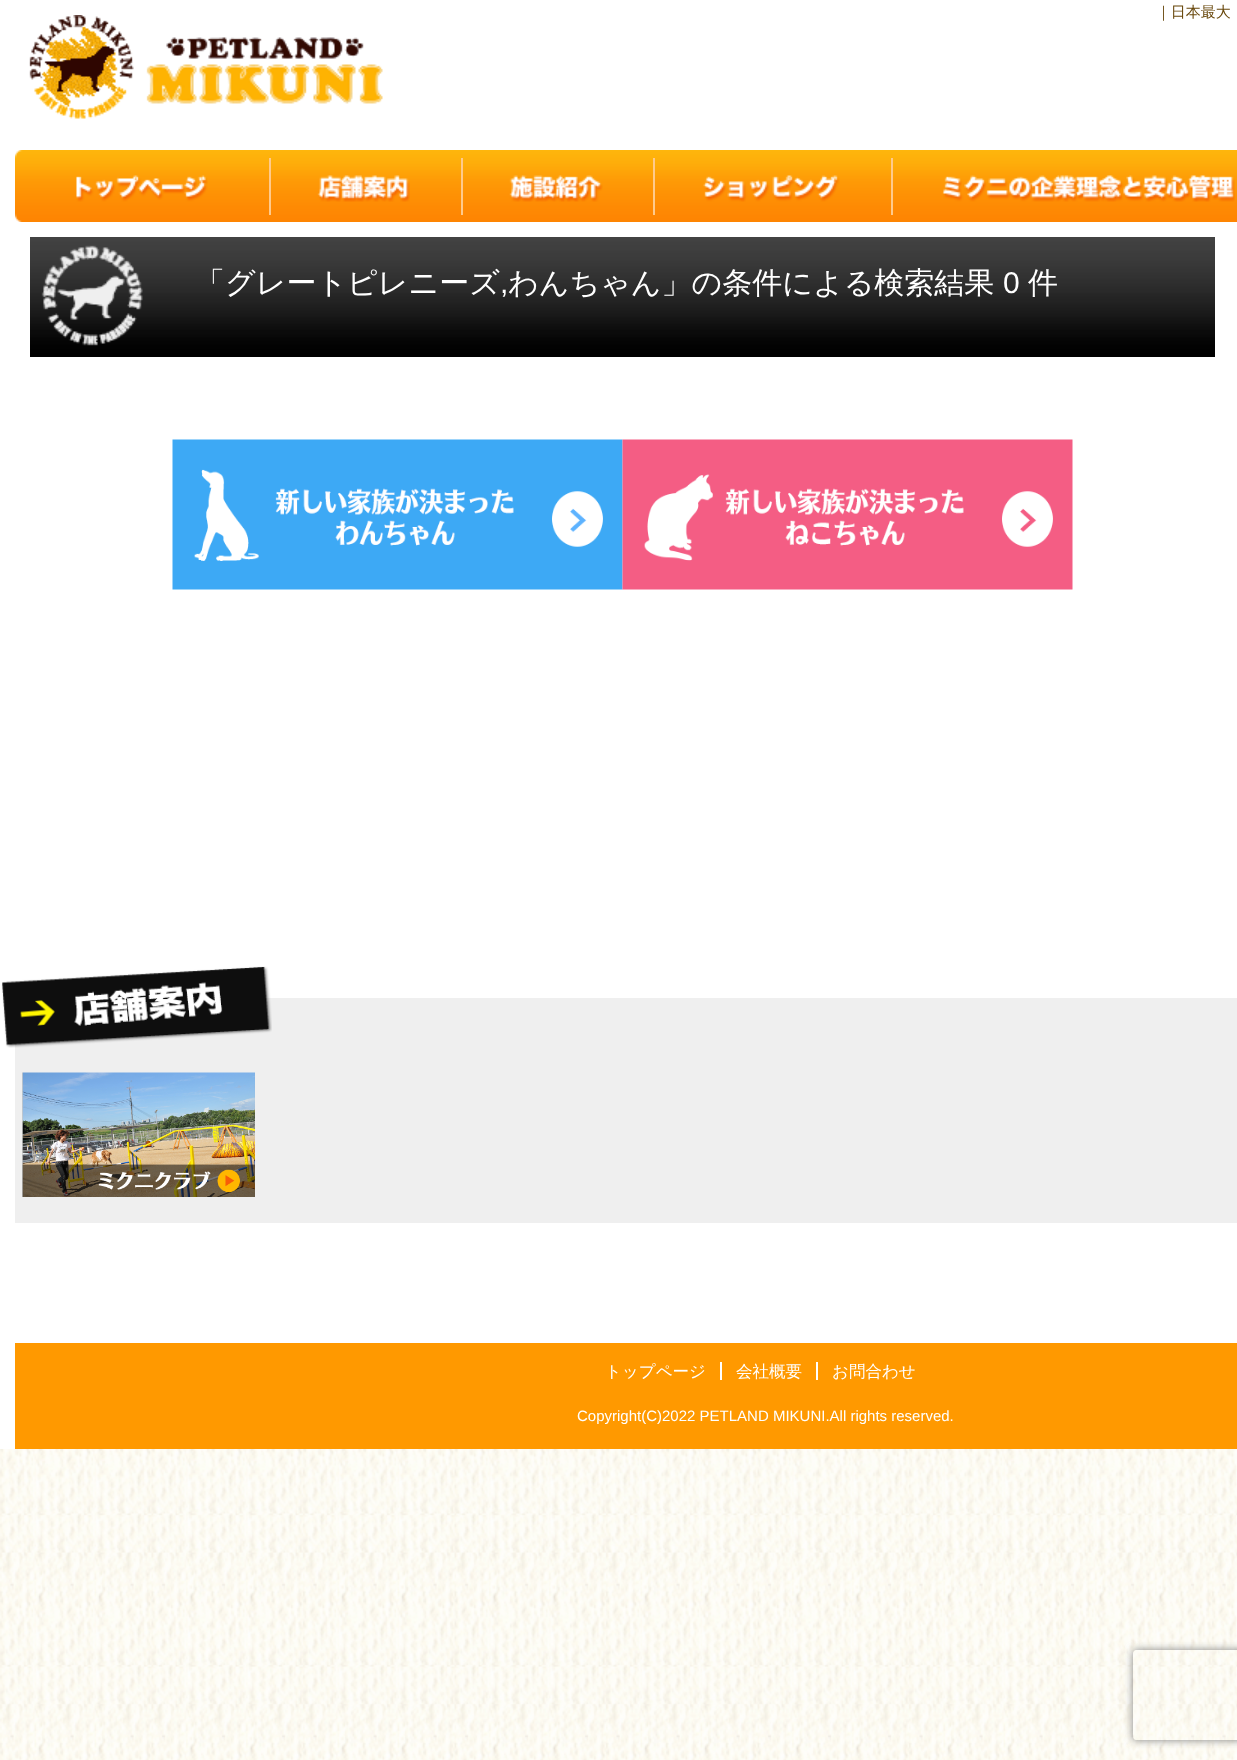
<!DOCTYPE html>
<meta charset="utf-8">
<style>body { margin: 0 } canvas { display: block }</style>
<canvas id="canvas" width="1237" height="1760"></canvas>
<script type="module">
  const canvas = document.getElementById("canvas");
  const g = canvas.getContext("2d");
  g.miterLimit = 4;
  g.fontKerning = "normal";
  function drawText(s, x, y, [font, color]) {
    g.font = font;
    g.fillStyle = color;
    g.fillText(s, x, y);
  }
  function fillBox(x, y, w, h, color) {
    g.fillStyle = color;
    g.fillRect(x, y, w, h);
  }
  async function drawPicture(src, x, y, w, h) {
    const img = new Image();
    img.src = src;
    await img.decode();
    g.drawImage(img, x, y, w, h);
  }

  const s1 = ["500 15px WenQuanYi Zen Hei", "#68470B"];
  const s2 = ["500 30px WenQuanYi Zen Hei", "#FFFFFF"];
  const s3 = ["30px Liberation Sans", "#FFFFFF"];
  const s4 = ["500 16.5px WenQuanYi Zen Hei", "#FFFFFF"];
  const s5 = ["15px Liberation Sans", "#FFFFFF"];

  fillBox(0, 0, 1237, 1760, "#FFFFFF");
  await drawPicture("pic1.png", 0, 1449, 1237, 311);
  drawText("｜日本最大", 1156, 17, s1);
  await drawPicture("pic2.png", 29, 15, 354, 104);
  await drawPicture("pic3.png", 15, 150, 1222, 72);
  await drawPicture("pic4.png", 76, 175, 132, 27);
  fillBox(269, 158, 2, 57, "#FFCA8C");
  await drawPicture("pic5.png", 317, 175, 93, 27);
  fillBox(461, 158, 2, 57, "#FFCA8C");
  await drawPicture("pic6.png", 509, 175, 94, 27);
  fillBox(653, 158, 2, 57, "#FFCA8C");
  await drawPicture("pic7.png", 703, 175, 137, 27);
  fillBox(891, 158, 2, 57, "#FFCA8C");
  await drawPicture("pic8.png", 942, 175, 293, 27);
  await drawPicture("pic9.png", 30, 237, 1185, 120);
  drawText("「グレートピレニーズ", 195, 293, s2);
  drawText(",", 500, 293, s3);
  drawText("わんちゃん」の条件による検索結果", 508, 293, s2);
  drawText("0", 1003, 293, s3);
  drawText("件", 1028, 293, s2);
  await drawPicture("pic10.png", 172, 439, 451, 151);
  await drawPicture("pic11.png", 622, 439, 451, 151);
  fillBox(15, 998, 1222, 225, "#EFEFEF");
  await drawPicture("pic12.png", 1, 966, 271, 82);
  await drawPicture("pic13.png", 22, 1072, 233, 125);
  fillBox(15, 1343, 1222, 106, "#FF9900");
  drawText("トップページ", 605, 1377, s4);
  drawText("会社概要", 736, 1377, s4);
  fillBox(720, 1362, 2, 18, "#FFFFFF");
  drawText("お問合わせ", 832, 1377, s4);
  fillBox(816, 1362, 2, 18, "#FFFFFF");
  drawText("Copyright(C)2022 PETLAND MIKUNI.All rights reserved.", 577, 1421, s5);
  g.save();
  g.beginPath();
  g.moveTo(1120, 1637);
  g.lineTo(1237, 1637);
  g.lineTo(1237, 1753);
  g.lineTo(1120, 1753);
  g.closePath();
  g.moveTo(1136, 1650);
  g.lineTo(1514, 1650);
  g.bezierCurveTo(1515.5, 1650, 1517, 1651.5, 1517, 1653);
  g.lineTo(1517, 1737);
  g.bezierCurveTo(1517, 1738.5, 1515.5, 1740, 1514, 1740);
  g.lineTo(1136, 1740);
  g.bezierCurveTo(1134.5, 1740, 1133, 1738.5, 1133, 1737);
  g.lineTo(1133, 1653);
  g.bezierCurveTo(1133, 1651.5, 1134.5, 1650, 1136, 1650);
  g.closePath();
  g.clip("evenodd");
  g.fillStyle = "#808080";
  g.filter = "blur(4px)";
  g.beginPath();
  g.roundRect(1133, 1650, 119, 90, 3);
  g.fill();
  g.filter = "none";
  g.restore();
</script>
